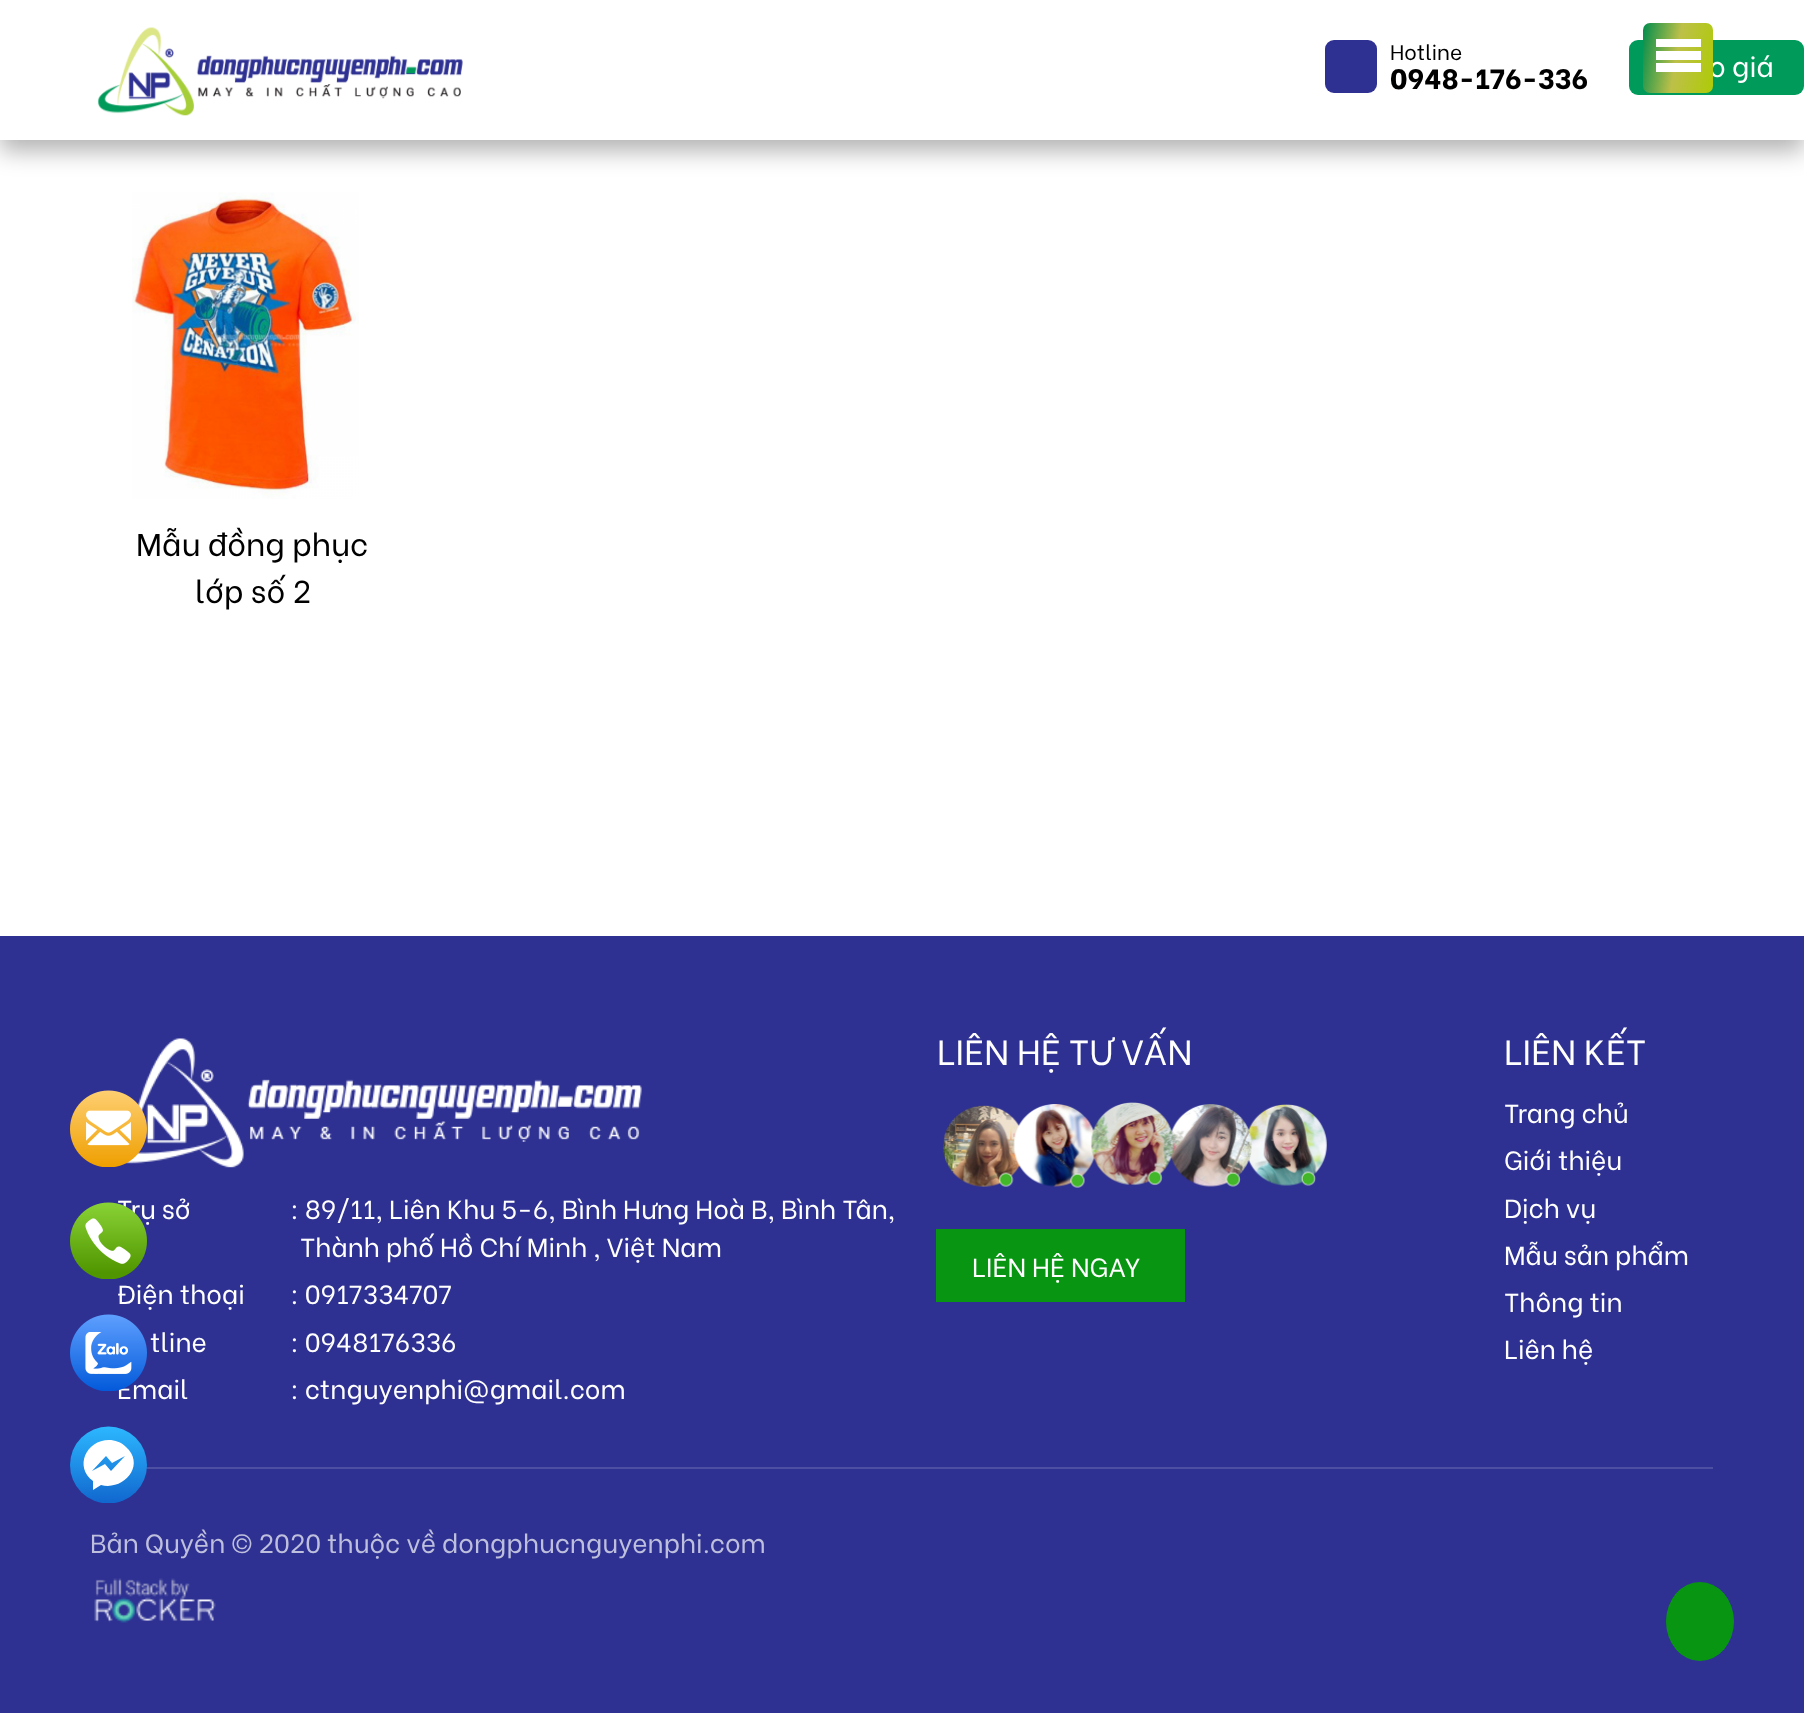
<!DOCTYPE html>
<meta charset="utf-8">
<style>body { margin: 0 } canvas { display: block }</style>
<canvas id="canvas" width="1804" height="1713"></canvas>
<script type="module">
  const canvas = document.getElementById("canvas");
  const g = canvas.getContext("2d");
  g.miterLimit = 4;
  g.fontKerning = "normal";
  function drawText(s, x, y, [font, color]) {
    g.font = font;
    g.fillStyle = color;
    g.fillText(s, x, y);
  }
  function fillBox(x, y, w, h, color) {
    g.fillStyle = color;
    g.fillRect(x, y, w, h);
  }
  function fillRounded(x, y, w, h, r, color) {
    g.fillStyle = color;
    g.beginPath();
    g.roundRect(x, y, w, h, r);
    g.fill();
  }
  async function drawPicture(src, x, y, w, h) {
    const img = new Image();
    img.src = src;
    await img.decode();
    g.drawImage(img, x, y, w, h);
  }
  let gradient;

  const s1 = ["28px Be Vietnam", "#FFFFFF"];
  const s2 = ["21px Be Vietnam", "#000000"];
  const s3 = ["800 28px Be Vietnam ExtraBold", "#000000"];
  const s4 = ["31.5px Be Vietnam", "#000000"];
  const s5 = ["26.25px Be Vietnam", "#FFFFFF"];
  const s6 = ["35px Be Vietnam", "#FFFFFF"];
  const s7 = ["26.25px Be Vietnam", "#BEBFDD"];

  fillBox(0, 0, 1804, 1713, "#FFFFFF");
  g.fillStyle = "rgba(0, 0, 0, 0.3)";
  g.filter = "blur(11.5px)";
  g.beginPath();
  g.rect(0, 11, 1804, 140);
  g.fill();
  g.filter = "none";
  fillBox(0, 0, 1804, 140, "#FFFFFF");
  await drawPicture("pic1.png", 97, 27, 366, 89);
  fillRounded(1629, 40, 175, 55, 9, "#009A5A");
  drawText("o giá", 1709, 77, s1);
  gradient = g.createLinearGradient(1718, 65, 1638, 51);
  gradient.addColorStop(0, "#AECB06");
  gradient.addColorStop(0.52, "#BDC048");
  gradient.addColorStop(1, "#008D4D");
  g.fillStyle = gradient;
  g.beginPath();
  g.roundRect(1643, 23, 70, 70, 7);
  g.fill();
  fillBox(1656, 51, 45, 9, "#FFFFFF");
  fillBox(1656, 39, 45, 8, "#FFFFFF");
  fillBox(1656, 63, 45, 9, "#FFFFFF");
  fillRounded(1325, 40, 52, 53, 9, "#2E3192");
  drawText("Hotline", 1390, 60, s2);
  drawText("0948-176-336", 1390, 89, s3);
  await drawPicture("pic2.png", 132, 192, 227, 307);
  drawText("Mẫu đồng phục", 136, 556, s4);
  drawText("lớp số 2", 195, 603, s4);
  fillBox(0, 936, 1804, 777, "#2E3192");
  await drawPicture("pic3.png", 124, 1038, 518, 130);
  drawText("Trụ sở", 117, 1219, s5);
  drawText(": 89/11, Liên Khu 5-6, Bình Hưng Hoà B, Bình Tân,", 291, 1219, s5);
  drawText("Thành phố Hồ Chí Minh , Việt Nam", 300, 1257, s5);
  drawText("Điện thoại", 117, 1304, s5);
  drawText(": 0917334707", 291, 1304, s5);
  drawText("tline", 150, 1352, s5);
  drawText(": 0948176336", 291, 1352, s5);
  drawText("Email", 117, 1399, s5);
  drawText(": ctnguyenphi@gmail.com", 291, 1399, s5);
  drawText("LIÊN HỆ TƯ VẤN", 937, 1065, s6);
  await drawPicture("pic4.png", 943, 1102, 384, 86);
  fillBox(936, 1229, 249, 73, "#089612");
  drawText("LIÊN HỆ NGAY", 972, 1277, s5);
  drawText("LIÊN KẾT", 1504, 1065, s6);
  drawText("Trang chủ", 1504, 1123, s5);
  drawText("Giới thiệu", 1504, 1170, s5);
  drawText("Dịch vụ", 1504, 1218, s5);
  drawText("Mẫu sản phẩm", 1504, 1265, s5);
  drawText("Thông tin", 1504, 1312, s5);
  drawText("Liên hệ", 1504, 1359, s5);
  fillBox(146, 1467, 1567, 2, "#4D50A2");
  drawText("Bản Quyền © 2020 thuộc về dongphucnguyenphi.com", 90, 1553, s7);
  await drawPicture("pic5.png", 94, 1578, 122, 45);
  await drawPicture("pic6.png", 70, 1090, 77, 77);
  await drawPicture("pic7.png", 70, 1202, 77, 77);
  await drawPicture("pic8.png", 70, 1314, 77, 77);
  g.save();
  g.beginPath();
  g.rect(70, 1426, 77, 77);
  g.clip();
  gradient = g.createLinearGradient(108, 1502, 108, 1427);
  gradient.addColorStop(0, "#1168CF");
  gradient.addColorStop(1, "#2CB7FF");
  g.fillStyle = gradient;
  g.beginPath();
  g.arc(108.5, 1465, 38.5, 0, Math.PI * 2);
  g.fill();
  g.restore();
  g.fillStyle = "#FFFFFF";
  g.beginPath();
  g.moveTo(109, 1440);
  g.bezierCurveTo(86, 1440, 74, 1467, 93, 1481);
  g.lineTo(93, 1490);
  g.lineTo(101, 1485);
  g.bezierCurveTo(124, 1491, 146, 1465, 126, 1447);
  g.bezierCurveTo(121, 1442, 115, 1440, 109, 1440);
  g.closePath();
  g.moveTo(111, 1471);
  g.lineTo(105, 1464);
  g.lineTo(92, 1471);
  g.lineTo(106, 1456);
  g.lineTo(112, 1463);
  g.lineTo(125, 1456);
  g.closePath();
  g.fill("evenodd");
  g.fillStyle = "#089612";
  g.beginPath();
  g.ellipse(1700, 1621.5, 34, 39.5, 0, 0, Math.PI * 2);
  g.fill();
</script>
